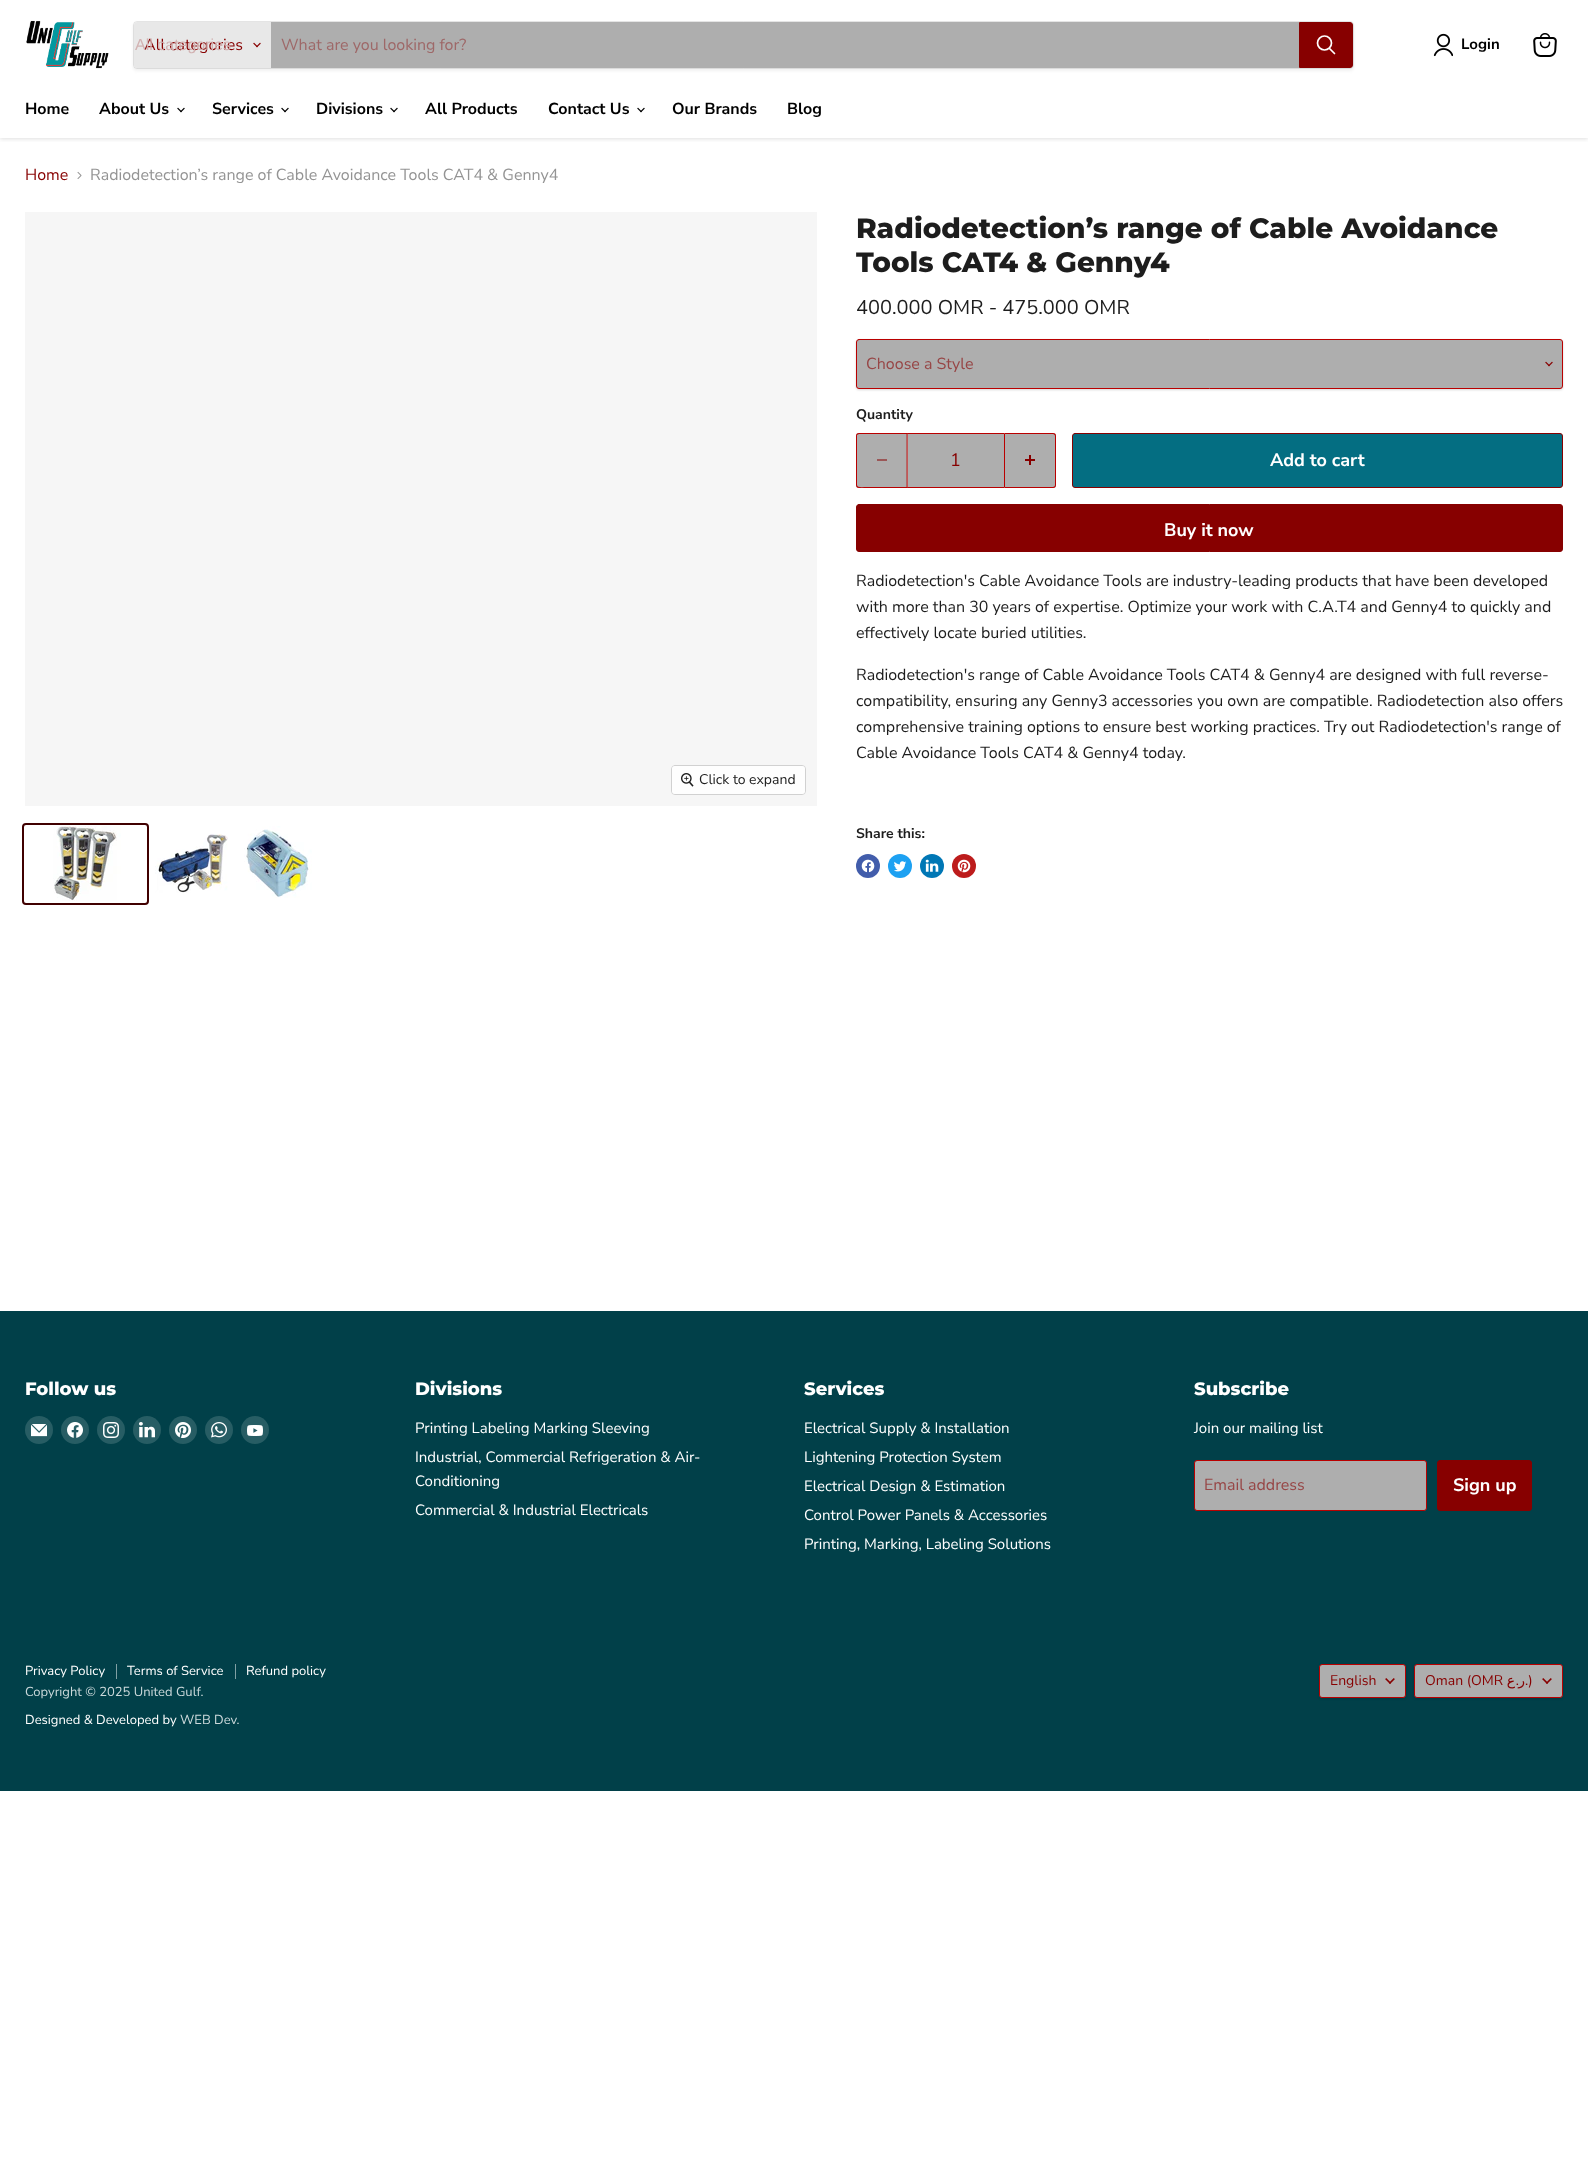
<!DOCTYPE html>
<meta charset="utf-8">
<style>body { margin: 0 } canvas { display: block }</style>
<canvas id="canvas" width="1588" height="2161"></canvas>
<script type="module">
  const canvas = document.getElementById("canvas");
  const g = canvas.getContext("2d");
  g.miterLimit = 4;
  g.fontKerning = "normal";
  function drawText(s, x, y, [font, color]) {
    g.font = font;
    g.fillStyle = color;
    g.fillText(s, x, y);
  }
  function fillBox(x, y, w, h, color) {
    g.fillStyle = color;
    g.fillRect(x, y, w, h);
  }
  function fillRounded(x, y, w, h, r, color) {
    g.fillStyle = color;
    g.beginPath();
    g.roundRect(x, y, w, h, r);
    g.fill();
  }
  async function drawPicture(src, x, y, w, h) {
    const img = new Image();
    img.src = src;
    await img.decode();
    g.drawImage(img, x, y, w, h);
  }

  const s1 = ["16px Nunito Sans", "#870000"];
  const s2 = ["16px Liberation Sans", "#D2B2B2"];
  const s3 = ["16px Nunito Sans", "#9E6868"];
  const s4 = ["bold 15px Nunito Sans", "#000000"];
  const s5 = ["bold 16px Nunito Sans", "#000000"];
  const s6 = ["16px Nunito Sans", "#949494"];
  const s7 = ["14px Nunito Sans", "#1D1D1D"];
  const s8 = ["800 28px Montserrat", "#1D1D1D"];
  const s9 = ["20px Nunito Sans", "#1D1D1D"];
  const s10 = ["16px Nunito Sans", "#974646"];
  const s11 = ["bold 14px Nunito Sans", "#1D1D1D"];
  const s12 = ["18px Nunito Sans", "#870000"];
  const s13 = ["bold 18px Nunito Sans", "#FFFFFF"];
  const s14 = ["16px Nunito Sans", "#1D1D1D"];
  const s15 = ["800 18px Montserrat", "#FFFFFF"];
  const s16 = ["15px Nunito Sans", "#FFFFFF"];
  const s17 = ["13px Nunito Sans", "#FFFFFF"];
  const s18 = ["13px Nunito Sans", "#CCD9DB"];
  const s19 = ["14px Nunito Sans", "#870000"];
  const s20 = ["14px DejaVu Sans", "#870000"];

  fillBox(0, 0, 1588, 2161, "#FFFFFF");
  g.save();
  g.beginPath();
  g.rect(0, 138, 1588, 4);
  g.clip();
  g.fillStyle = "rgba(128, 128, 128, 0.25)";
  g.filter = "blur(2px)";
  g.beginPath();
  g.rect(0, 1, 1588, 138);
  g.fill();
  g.filter = "none";
  g.restore();
  await drawPicture("pic1.png", 26, 20, 83, 49);
  g.fillStyle = "rgba(128, 128, 128, 0.11)";
  g.filter = "blur(1.5px)";
  g.beginPath();
  g.roundRect(133, 23, 1221, 48, 4);
  g.fill();
  g.filter = "none";
  g.beginPath();
  g.roundRect(133.5, 21.5, 1220, 47, 3.5);
  g.strokeStyle = "rgba(128, 128, 128, 0.2)";
  g.stroke();
  g.fillStyle = "#E8E8E8";
  g.beginPath();
  g.roundRect(134, 22, 137, 46, [3, 0, 0, 3]);
  g.fill();
  drawText("All categories", 144, 50, s1);
  drawText("All categories", 135, 50, s2);
  await drawPicture("pic2.png", 253, 42, 8, 6);
  fillBox(271, 22, 1028, 46, "#AEAEAE");
  drawText("What are you looking for?", 281, 50, s3);
  g.fillStyle = "#870000";
  g.beginPath();
  g.roundRect(1299.5, 22.5, 53, 45, [0, 2.5, 2.5, 0]);
  g.fill();
  g.strokeStyle = "#870000";
  g.stroke();
  g.beginPath();
  g.moveTo(1334.5, 53.5);
  g.lineTo(1329.5, 48.5);
  g.strokeStyle = "#FFFFFF";
  g.lineWidth = 1.7;
  g.lineCap = "round";
  g.stroke();
  g.beginPath();
  g.arc(1324.5, 43, 7, 0, Math.PI * 2);
  g.stroke();
  await drawPicture("pic3.png", 1433, 33, 20, 24);
  drawText("Login", 1461, 49, s4);
  await drawPicture("pic4.png", 1533, 33, 24, 24);
  drawText("Home", 25, 114, s5);
  drawText("About Us", 99, 114, s5);
  await drawPicture("pic5.png", 177, 107, 8, 6);
  drawText("Services", 212, 114, s5);
  await drawPicture("pic5.png", 281, 107, 8, 6);
  drawText("Divisions", 316, 114, s5);
  await drawPicture("pic5.png", 390, 107, 8, 6);
  drawText("All Products", 425, 114, s5);
  drawText("Contact Us", 548, 114, s5);
  await drawPicture("pic5.png", 637, 107, 8, 6);
  drawText("Our Brands", 672, 114, s5);
  drawText("Blog", 787, 114, s5);
  drawText("Home", 25, 180, s1);
  await drawPicture("pic6.png", 77, 171, 5, 8);
  drawText("Radiodetection’s range of Cable Avoidance Tools CAT4 & Genny4", 90, 180, s6);
  fillBox(25, 212, 792, 594, "#F6F6F6");
  g.beginPath();
  g.roundRect(671.5, 765.5, 134, 29, 3.5);
  g.strokeStyle = "#D1D1D1";
  g.lineWidth = 1;
  g.stroke();
  fillRounded(672, 766, 133, 28, 3, "rgba(255, 255, 255, 0.9)");
  await drawPicture("pic7.png", 681, 773, 13, 14);
  drawText("Click to expand", 699, 784, s7);
  g.beginPath();
  g.roundRect(23, 824, 125, 80, 3);
  g.strokeStyle = "#400000";
  g.lineWidth = 2;
  g.stroke();
  await drawPicture("pic8.png", 53, 826, 68, 75);
  await drawPicture("pic9.png", 155, 834, 73, 59);
  await drawPicture("pic10.png", 244, 826, 68, 72);
  drawText("Radiodetection’s range of Cable Avoidance", 856, 238, s8);
  drawText("Tools CAT4 & Genny4", 856, 272, s8);
  drawText("400.000 OMR - 475.000 OMR", 856, 314, s9);
  g.fillStyle = "rgba(0, 0, 0, 0.15)";
  g.filter = "blur(1px)";
  g.beginPath();
  g.roundRect(856, 340, 707, 50, 3);
  g.fill();
  g.filter = "none";
  g.fillStyle = "#AEAEAE";
  g.beginPath();
  g.roundRect(856.5, 339.5, 706, 49, 2.5);
  g.fill();
  g.strokeStyle = "#BA0000";
  g.lineWidth = 1;
  g.stroke();
  await drawPicture("pic11.png", 1545, 361, 8, 6);
  drawText("Choose a Style", 866, 369, s10);
  drawText("Quantity", 856, 419, s11);
  g.fillStyle = "#AEAEAE";
  g.beginPath();
  g.roundRect(856, 433, 51, 55, [3, 0, 0, 3]);
  g.fill();
  g.fillStyle = "#BA0000";
  g.beginPath();
  g.moveTo(859, 433);
  g.lineTo(907, 433);
  g.lineTo(907, 488);
  g.lineTo(859, 488);
  g.bezierCurveTo(857, 488, 856, 487, 856, 485);
  g.lineTo(856, 436);
  g.bezierCurveTo(856, 434, 857, 433, 859, 433);
  g.closePath();
  g.moveTo(859, 434);
  g.lineTo(907, 434);
  g.lineTo(907, 487);
  g.lineTo(867, 487);
  g.bezierCurveTo(863, 487, 857, 488, 857, 485);
  g.lineTo(857, 435);
  g.closePath();
  g.fill("evenodd");
  fillBox(877, 459, 10, 2, "#9B5757");
  g.fillStyle = "#AEAEAE";
  g.beginPath();
  g.rect(907.5, 433.5, 97, 54);
  g.fill();
  g.stroke();
  drawText("1", 950, 466, s12);
  g.fillStyle = "#AEAEAE";
  g.beginPath();
  g.roundRect(1005, 433, 51, 55, [0, 3, 3, 0]);
  g.fill();
  g.fillStyle = "#BA0000";
  g.beginPath();
  g.moveTo(1005, 433);
  g.lineTo(1053, 433);
  g.bezierCurveTo(1055, 433, 1056, 434, 1056, 436);
  g.lineTo(1056, 485);
  g.bezierCurveTo(1056, 487, 1055, 488, 1053, 488);
  g.lineTo(1005, 488);
  g.closePath();
  g.moveTo(1005, 434);
  g.lineTo(1053, 434);
  g.bezierCurveTo(1054, 434, 1055, 435, 1055, 436);
  g.lineTo(1055, 485);
  g.bezierCurveTo(1055, 486, 1054, 487, 1053, 487);
  g.lineTo(1005, 487);
  g.closePath();
  g.fill("evenodd");
  await drawPicture("pic12.png", 1025, 455, 10, 10);
  g.fillStyle = "#046E82";
  g.beginPath();
  g.roundRect(1072.5, 433.5, 490, 54, 2.5);
  g.fill();
  g.strokeStyle = "#870000";
  g.stroke();
  drawText("Add to cart", 1270, 466, s13);
  g.fillStyle = "#870000";
  g.beginPath();
  g.roundRect(856.5, 504.5, 706, 47, 2.5);
  g.fill();
  g.stroke();
  drawText("Buy it now", 1164, 536, s13);
  drawText("Radiodetection's Cable Avoidance Tools are industry-leading products that have been developed", 856, 586, s14);
  drawText("with more than 30 years of expertise. Optimize your work with C.A.T4 and Genny4 to quickly and", 856, 612, s14);
  drawText("effectively locate buried utilities.", 856, 638, s14);
  drawText("Radiodetection's range of Cable Avoidance Tools CAT4 & Genny4 are designed with full reverse-", 856, 680, s14);
  drawText("compatibility, ensuring any Genny3 accessories you own are compatible. Radiodetection also offers", 856, 706, s14);
  drawText("comprehensive training options to ensure best working practices. Try out Radiodetection's range of", 856, 732, s14);
  drawText("Cable Avoidance Tools CAT4 & Genny4 today.", 856, 758, s14);
  drawText("Share this:", 856, 838, s11);
  g.fillStyle = "#425DAB";
  g.beginPath();
  g.arc(868, 866, 12, 0, Math.PI * 2);
  g.fill();
  await drawPicture("pic13.png", 861, 859, 14, 14);
  g.fillStyle = "#1DA1F2";
  g.beginPath();
  g.arc(900, 866, 12, 0, Math.PI * 2);
  g.fill();
  await drawPicture("pic14.png", 894, 861, 13, 11);
  g.fillStyle = "#0077B5";
  g.beginPath();
  g.arc(932, 866, 12, 0, Math.PI * 2);
  g.fill();
  await drawPicture("pic15.png", 925, 859, 14, 13);
  g.fillStyle = "#BD1C1C";
  g.beginPath();
  g.arc(964, 866, 12, 0, Math.PI * 2);
  g.fill();
  await drawPicture("pic16.png", 957, 859, 14, 14);
  fillBox(0, 1311, 1588, 480, "#014049");
  drawText("Follow us", 25, 1395, s15);
  g.fillStyle = "#275D64";
  g.beginPath();
  g.arc(39, 1430, 14, 0, Math.PI * 2);
  g.fill();
  await drawPicture("pic17.png", 31, 1424, 16, 13);
  g.beginPath();
  g.arc(75, 1430, 14, 0, Math.PI * 2);
  g.fill();
  await drawPicture("pic18.png", 67, 1422, 16, 16);
  g.beginPath();
  g.arc(111, 1430, 14, 0, Math.PI * 2);
  g.fill();
  await drawPicture("pic19.png", 103, 1422, 16, 16);
  g.beginPath();
  g.arc(147, 1430, 14, 0, Math.PI * 2);
  g.fill();
  await drawPicture("pic20.png", 139, 1422, 16, 16);
  g.beginPath();
  g.arc(183, 1430, 14, 0, Math.PI * 2);
  g.fill();
  await drawPicture("pic21.png", 175, 1422, 16, 16);
  g.beginPath();
  g.arc(219, 1430, 14, 0, Math.PI * 2);
  g.fill();
  await drawPicture("pic22.png", 211, 1422, 16, 16);
  g.beginPath();
  g.arc(255, 1430, 14, 0, Math.PI * 2);
  g.fill();
  await drawPicture("pic23.png", 247, 1425, 16, 11);
  drawText("Divisions", 415, 1395, s15);
  drawText("Printing Labeling Marking Sleeving", 415, 1433, s16);
  drawText("Industrial, Commercial Refrigeration & Air-", 415, 1462, s16);
  drawText("Conditioning", 415, 1486, s16);
  drawText("Commercial & Industrial Electricals", 415, 1515, s16);
  drawText("Services", 804, 1395, s15);
  drawText("Electrical Supply & Installation", 804, 1433, s16);
  drawText("Lightening Protection System", 804, 1462, s16);
  drawText("Electrical Design & Estimation", 804, 1491, s16);
  drawText("Control Power Panels & Accessories", 804, 1520, s16);
  drawText("Printing, Marking, Labeling Solutions", 804, 1549, s16);
  drawText("Subscribe", 1194, 1395, s15);
  drawText("Join our mailing list", 1194, 1433, s16);
  g.fillStyle = "#AEAEAE";
  g.beginPath();
  g.roundRect(1194.5, 1460.5, 232, 50, 2.5);
  g.fill();
  g.strokeStyle = "#BA0000";
  g.stroke();
  drawText("Email address", 1204, 1490, s10);
  g.fillStyle = "#870000";
  g.beginPath();
  g.roundRect(1437.5, 1460.5, 94, 50, 2.5);
  g.fill();
  g.strokeStyle = "#870000";
  g.stroke();
  drawText("Sign up", 1453, 1491, s13);
  fillBox(116, 1664, 1, 15, "#80A0A4");
  drawText("Privacy Policy", 25, 1675, s17);
  fillBox(235, 1664, 1, 15, "#80A0A4");
  drawText("Terms of Service", 127, 1675, s17);
  drawText("Refund policy", 246, 1675, s17);
  drawText("Copyright © 2025 United Gulf.", 25, 1696, s18);
  drawText("Designed & Developed by", 25, 1724, s17);
  drawText("WEB Dev.", 180, 1724, s18);
  g.fillStyle = "rgba(0, 0, 0, 0.15)";
  g.filter = "blur(1px)";
  g.beginPath();
  g.roundRect(1319, 1665, 87, 34, 3);
  g.fill();
  g.filter = "none";
  g.fillStyle = "#AEAEAE";
  g.beginPath();
  g.roundRect(1319.5, 1664.5, 86, 33, 2.5);
  g.fill();
  g.strokeStyle = "#BA0000";
  g.stroke();
  drawText("English", 1330, 1685, s19);
  await drawPicture("pic24.png", 1385, 1678, 10, 6);
  g.fillStyle = "rgba(0, 0, 0, 0.15)";
  g.filter = "blur(1px)";
  g.beginPath();
  g.roundRect(1414, 1665, 149, 34, 3);
  g.fill();
  g.filter = "none";
  g.fillStyle = "#AEAEAE";
  g.beginPath();
  g.roundRect(1414.5, 1664.5, 148, 33, 2.5);
  g.fill();
  g.stroke();
  drawText("Oman (OMR", 1425, 1685, s19);
  g.direction = "rtl";
  drawText("ع", 1515, 1685, s20);
  drawText(".", 1519, 1685, s19);
  drawText("ر", 1525, 1685, s20);
  g.direction = "ltr";
  drawText(".)", 1525, 1685, s19);
  await drawPicture("pic24.png", 1542, 1678, 10, 6);
</script>
